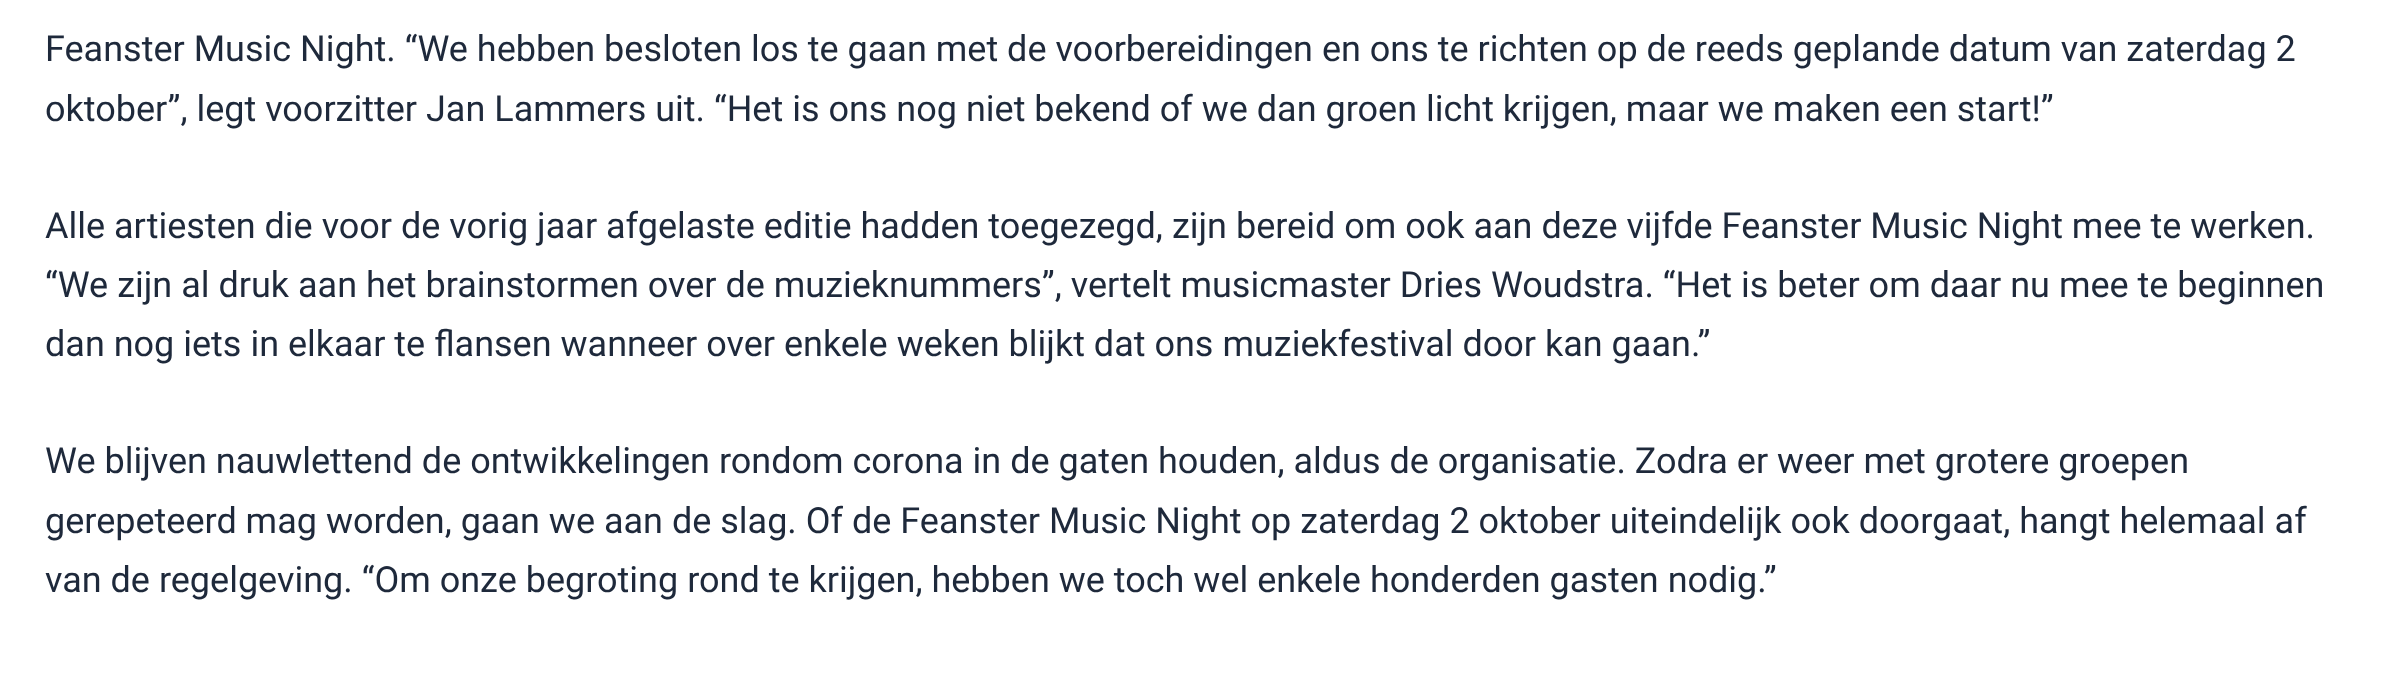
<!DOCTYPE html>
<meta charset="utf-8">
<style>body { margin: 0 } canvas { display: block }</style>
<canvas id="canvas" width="2383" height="674"></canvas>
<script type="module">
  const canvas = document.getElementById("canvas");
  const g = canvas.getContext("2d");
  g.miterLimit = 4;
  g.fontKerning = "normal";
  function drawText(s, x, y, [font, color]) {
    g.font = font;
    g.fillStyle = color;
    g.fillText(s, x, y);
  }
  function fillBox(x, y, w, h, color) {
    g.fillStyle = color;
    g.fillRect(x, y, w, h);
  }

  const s1 = ["36px Roboto", "#1E293B"];

  fillBox(0, 0, 2383, 674, "#FFFFFF");
  drawText("Feanster Music Night. “We hebben besloten los te gaan met de voorbereidingen en ons te richten op de reeds geplande datum van zaterdag 2", 45, 61, s1);
  drawText("oktober”, legt voorzitter Jan Lammers uit. “Het is ons nog niet bekend of we dan groen licht krijgen, maar we maken een start!”", 45, 121, s1);
  drawText("Alle artiesten die voor de vorig jaar afgelaste editie hadden toegezegd, zijn bereid om ook aan deze vijfde Feanster Music Night mee te werken.", 45, 238, s1);
  drawText("“We zijn al druk aan het brainstormen over de muzieknummers”, vertelt musicmaster Dries Woudstra. “Het is beter om daar nu mee te beginnen", 45, 297, s1);
  drawText("dan nog iets in elkaar te flansen wanneer over enkele weken blijkt dat ons muziekfestival door kan gaan.”", 45, 356, s1);
  drawText("We blijven nauwlettend de ontwikkelingen rondom corona in de gaten houden, aldus de organisatie. Zodra er weer met grotere groepen", 45, 473, s1);
  drawText("gerepeteerd mag worden, gaan we aan de slag. Of de Feanster Music Night op zaterdag 2 oktober uiteindelijk ook doorgaat, hangt helemaal af", 45, 533, s1);
  drawText("van de regelgeving. “Om onze begroting rond te krijgen, hebben we toch wel enkele honderden gasten nodig.”", 45, 592, s1);
</script>
